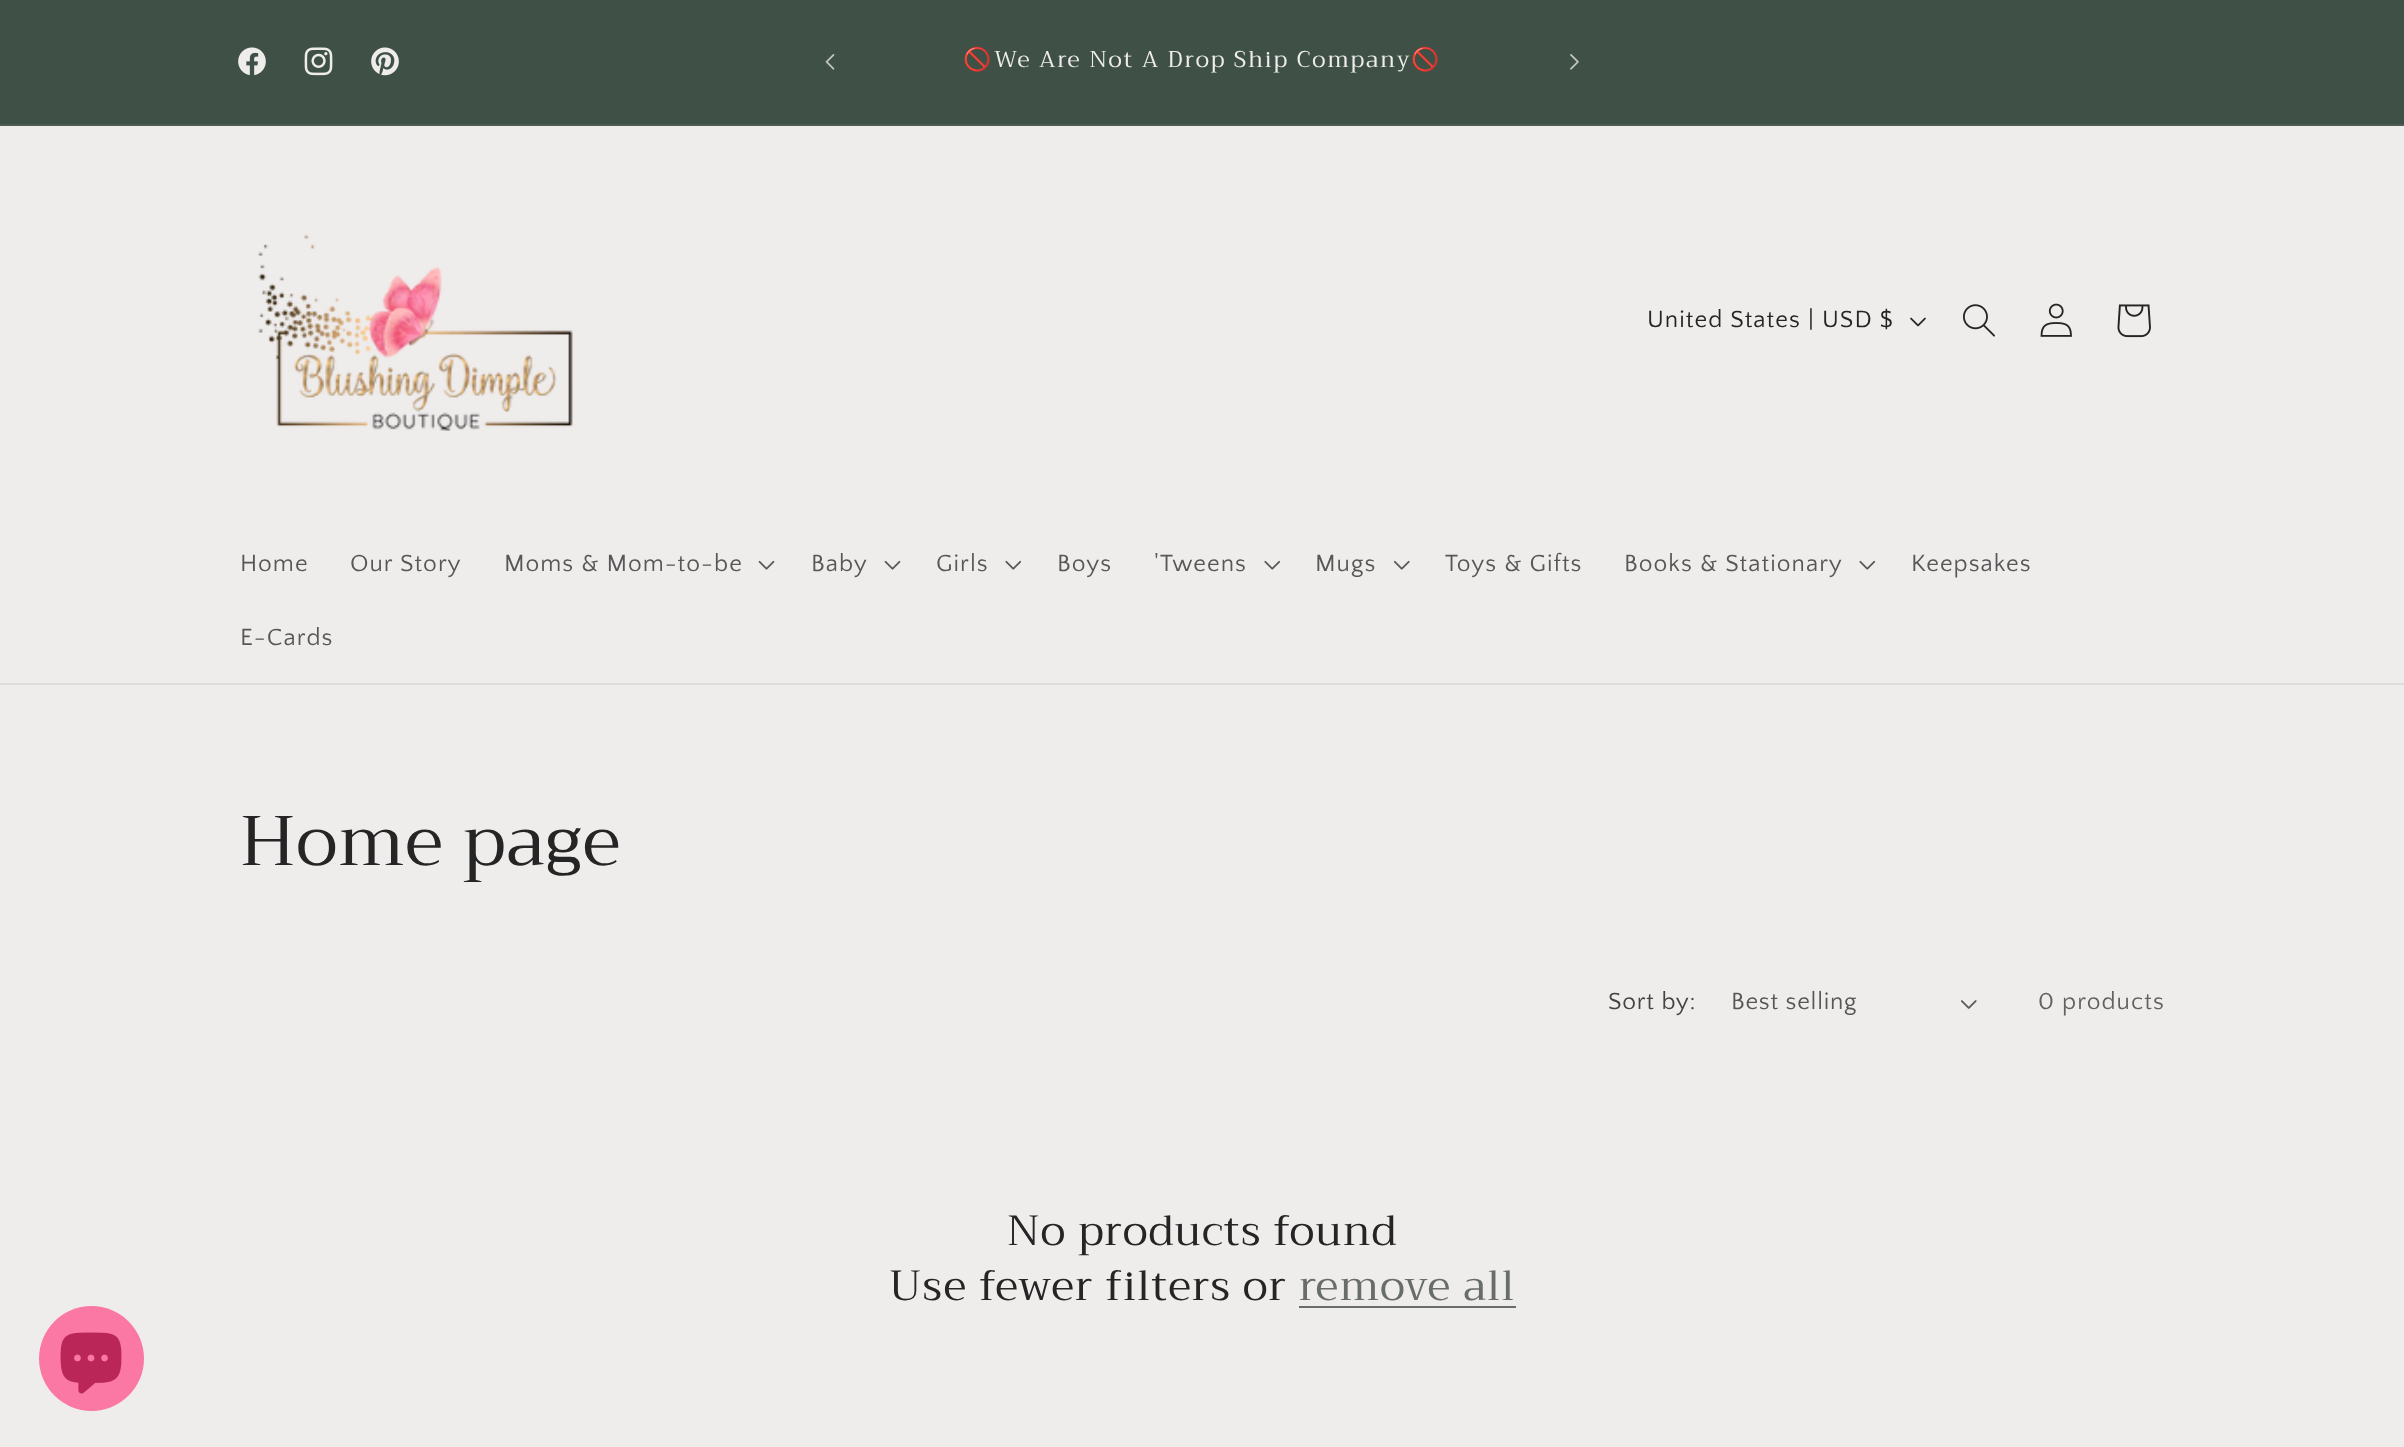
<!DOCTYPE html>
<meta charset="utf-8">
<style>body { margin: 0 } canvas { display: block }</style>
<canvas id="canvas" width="2404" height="1447"></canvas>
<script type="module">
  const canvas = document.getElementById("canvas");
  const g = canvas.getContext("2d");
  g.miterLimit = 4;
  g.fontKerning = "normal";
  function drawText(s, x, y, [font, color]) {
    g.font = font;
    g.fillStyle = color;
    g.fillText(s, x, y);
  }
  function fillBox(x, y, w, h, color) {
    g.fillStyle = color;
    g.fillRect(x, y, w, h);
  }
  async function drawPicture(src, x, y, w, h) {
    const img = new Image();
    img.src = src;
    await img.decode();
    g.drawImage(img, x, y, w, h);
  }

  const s1 = ["22.75px Noto Color Emoji", "#EFECEC"];
  const s2 = ["22.75px Trirong", "#EFECEC"];
  const s3 = ["24.5px Quattrocento Sans", "#252525"];
  const s4 = ["24.5px Quattrocento Sans", "#585757"];
  const s5 = ["70px Trirong", "#252525"];
  const s6 = ["24.5px Quattrocento Sans", "#434343"];
  const s7 = ["24.5px Quattrocento Sans", "#626161"];
  const s8 = ["42px Trirong", "#252525"];
  const s9 = ["42px Trirong", "#686D6C"];

  fillBox(0, 0, 2404, 1447, "#EFECEC");
  fillBox(0, 0, 2404, 124, "#3F5147");
  fillBox(0, 124, 2404, 2, "#4D5D54");
  await drawPicture("pic1.png", 238, 47, 28, 29);
  await drawPicture("pic2.png", 304, 47, 29, 29);
  await drawPicture("pic3.png", 371, 47, 28, 29);
  await drawPicture("pic4.png", 825, 54, 10, 16);
  g.letterSpacing = "1.75px";
  drawText("🚫", 963, 67, s1);
  drawText("We Are Not A Drop Ship Company", 994, 67, s2);
  drawText("🚫", 1411, 67, s1);
  await drawPicture("pic5.png", 1570, 54, 9, 16);
  fillBox(0, 683, 2404, 2, "#DFDCDC");
  await drawPicture("pic6.png", 258, 234, 315, 197);
  g.letterSpacing = "1.05px";
  drawText("United States | USD $", 1647, 327, s3);
  await drawPicture("pic7.png", 1910, 317, 16, 10);
  await drawPicture("pic8.png", 1963, 304, 32, 33);
  await drawPicture("pic9.png", 2040, 303, 32, 34);
  await drawPicture("pic10.png", 2117, 304, 34, 34);
  drawText("Home", 240, 571, s4);
  drawText("Our Story", 350, 571, s4);
  drawText("Moms & Mom-to-be", 504, 571, s4);
  await drawPicture("pic11.png", 758, 560, 17, 10);
  drawText("Baby", 811, 571, s4);
  await drawPicture("pic11.png", 884, 560, 17, 10);
  drawText("Girls", 936, 571, s4);
  await drawPicture("pic12.png", 1005, 560, 17, 10);
  drawText("Boys", 1057, 571, s4);
  drawText("'Tweens", 1154, 571, s4);
  await drawPicture("pic12.png", 1264, 560, 17, 10);
  drawText("Mugs", 1315, 571, s4);
  await drawPicture("pic13.png", 1393, 560, 17, 10);
  drawText("Toys & Gifts", 1445, 571, s4);
  drawText("Books & Stationary", 1624, 571, s4);
  await drawPicture("pic12.png", 1859, 560, 17, 10);
  drawText("Keepsakes", 1911, 571, s4);
  drawText("E-Cards", 240, 645, s4);
  drawText("Home page", 240, 865, s5);
  g.letterSpacing = "0.75px";
  drawText("Sort by:", 1608, 1009, s6);
  drawText("Best selling", 1731, 1009, s4);
  await drawPicture("pic14.png", 1961, 1000, 16, 9);
  g.letterSpacing = "1.05px";
  drawText("0 products", 2038, 1009, s7);
  drawText("No products found", 1007, 1245, s8);
  drawText("Use fewer filters or", 889, 1300, s8);
  drawText("remove all", 1299, 1300, s9);
  fillBox(1299, 1306, 217, 2, "#686D6C");
  g.fillStyle = "#FA78A3";
  g.beginPath();
  g.arc(91.5, 1358.5, 52.5, 0, Math.PI * 2);
  g.fill();
  await drawPicture("pic15.png", 60, 1332, 62, 62);
</script>
